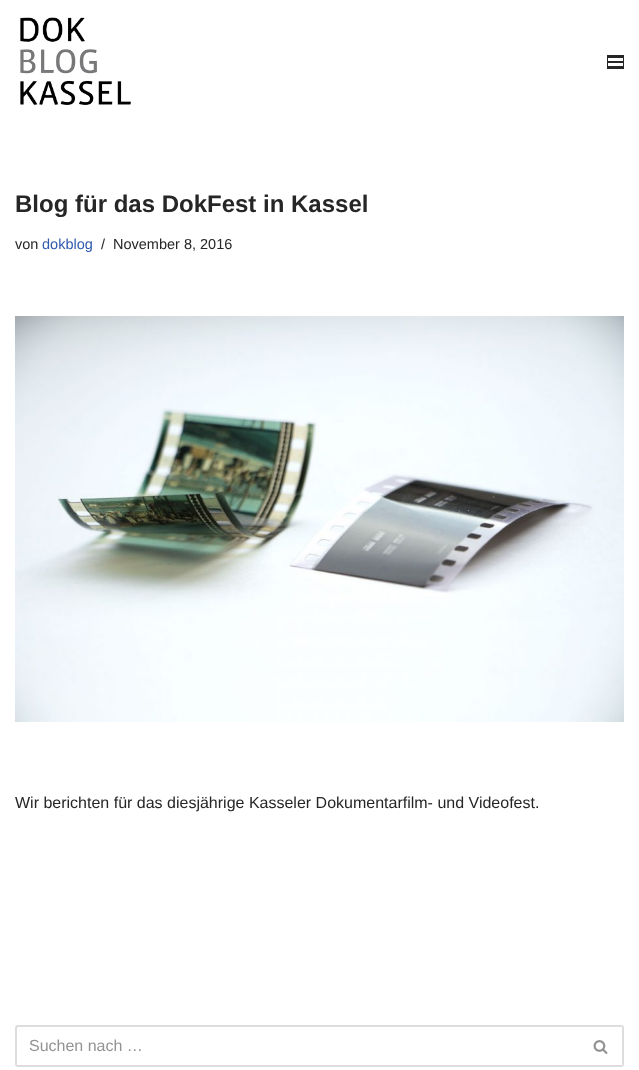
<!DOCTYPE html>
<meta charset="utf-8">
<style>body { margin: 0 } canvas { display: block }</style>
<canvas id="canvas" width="639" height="1070"></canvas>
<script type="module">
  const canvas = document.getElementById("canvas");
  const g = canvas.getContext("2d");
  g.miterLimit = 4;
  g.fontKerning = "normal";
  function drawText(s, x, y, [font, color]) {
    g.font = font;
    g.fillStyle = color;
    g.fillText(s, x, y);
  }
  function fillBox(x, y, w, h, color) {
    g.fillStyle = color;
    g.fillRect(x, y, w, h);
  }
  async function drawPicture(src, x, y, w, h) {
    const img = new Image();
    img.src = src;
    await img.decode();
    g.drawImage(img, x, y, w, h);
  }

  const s1 = ["bold 24px Liberation Sans", "#272626"];
  const s2 = ["14.5px Liberation Sans", "#272626"];
  const s3 = ["14.5px Liberation Sans", "#2F5AAE"];
  const s4 = ["16px Liberation Sans", "#272626"];
  const s5 = ["16px Liberation Sans", "#939393"];

  fillBox(0, 0, 639, 1070, "#FFFFFF");
  await drawPicture("pic1.png", 20, 17, 111, 88);
  g.strokeStyle = "#272626";
  g.strokeRect(607.5, 55.5, 16, 13);
  fillBox(608, 56, 15, 2, "#272626");
  fillBox(608, 61, 15, 2, "#272626");
  fillBox(608, 66, 15, 2, "#272626");
  drawText("Blog für das DokFest in Kassel", 15, 212, s1);
  drawText("von", 15, 249, s2);
  drawText("dokblog", 42, 249, s3);
  drawText("/", 101, 249, s2);
  drawText("November 8, 2016", 113, 249, s2);
  await drawPicture("pic2.png", 15, 316, 609, 406);
  drawText("Wir berichten für das diesjährige Kasseler Dokumentarfilm- und Videofest.", 15, 808, s4);
  g.fillStyle = "#DDDDDD";
  g.beginPath();
  g.moveTo(18, 1025);
  g.lineTo(579, 1025);
  g.lineTo(579, 1067);
  g.lineTo(18, 1067);
  g.bezierCurveTo(16, 1067, 15, 1066, 15, 1064);
  g.lineTo(15, 1028);
  g.bezierCurveTo(15, 1026, 16, 1025, 18, 1025);
  g.closePath();
  g.moveTo(18, 1027);
  g.lineTo(579, 1027);
  g.lineTo(579, 1065);
  g.lineTo(18, 1065);
  g.lineTo(17, 1065);
  g.lineTo(17, 1028);
  g.closePath();
  g.fill("evenodd");
  drawText("Suchen nach …", 29, 1051, s5);
  g.fillStyle = "#DDDDDD";
  g.beginPath();
  g.moveTo(579, 1025);
  g.lineTo(621, 1025);
  g.bezierCurveTo(623, 1025, 624, 1026, 624, 1028);
  g.lineTo(624, 1064);
  g.bezierCurveTo(624, 1066, 623, 1067, 621, 1067);
  g.lineTo(579, 1067);
  g.closePath();
  g.moveTo(579, 1027);
  g.lineTo(621, 1027);
  g.bezierCurveTo(622, 1027, 622, 1027, 622, 1028);
  g.lineTo(622, 1064);
  g.bezierCurveTo(622, 1065, 622, 1065, 621, 1065);
  g.lineTo(579, 1065);
  g.closePath();
  g.fill("evenodd");
  await drawPicture("pic3.png", 593, 1040, 15, 14);
</script>
